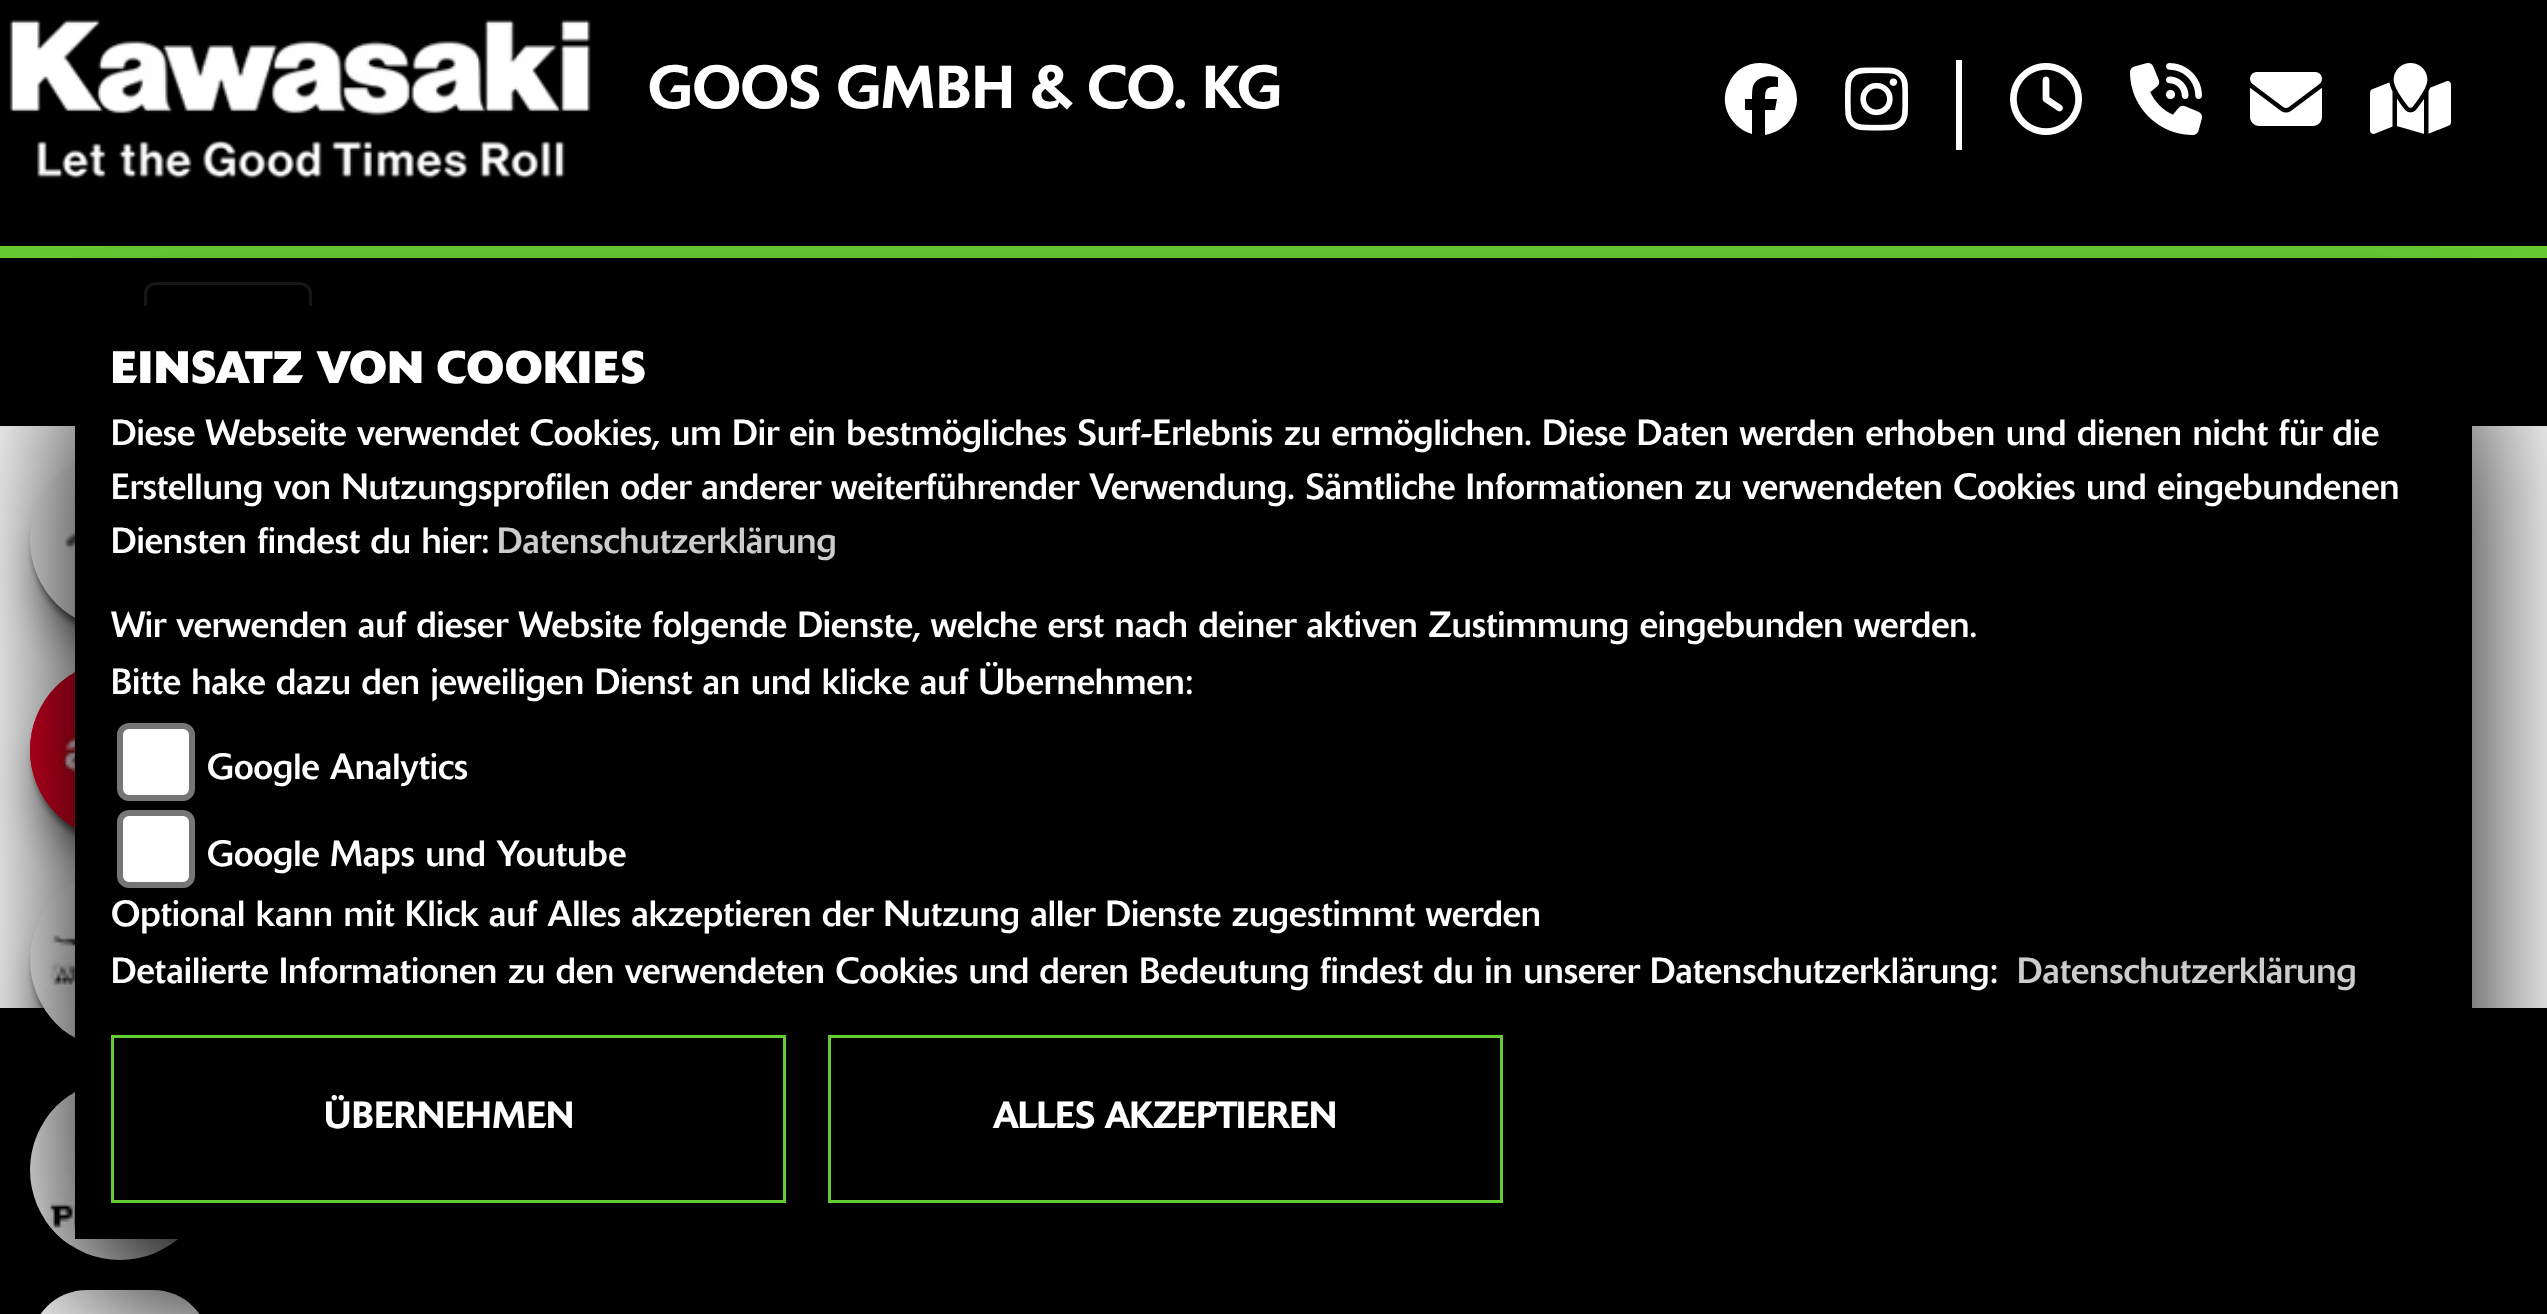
<!DOCTYPE html>
<meta charset="utf-8">
<style>body { margin: 0 } canvas { display: block }</style>
<canvas id="canvas" width="2547" height="1314"></canvas>
<script type="module">
  const canvas = document.getElementById("canvas");
  const g = canvas.getContext("2d");
  g.miterLimit = 4;
  g.fontKerning = "normal";
  function drawText(s, x, y, [font, color]) {
    g.font = font;
    g.fillStyle = color;
    g.fillText(s, x, y);
  }
  function fillBox(x, y, w, h, color) {
    g.fillStyle = color;
    g.fillRect(x, y, w, h);
  }
  function fillRounded(x, y, w, h, r, color) {
    g.fillStyle = color;
    g.beginPath();
    g.roundRect(x, y, w, h, r);
    g.fill();
  }
  async function drawPicture(src, x, y, w, h) {
    const img = new Image();
    img.src = src;
    await img.decode();
    g.drawImage(img, x, y, w, h);
  }

  const s1 = ["bold 57.6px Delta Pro", "#FFFFFF"];
  const s2 = ["bold 45px 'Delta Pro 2'", "#FFFFFF"];
  const s3 = ["36px Delta Pro", "#FFFFFF"];
  const s4 = ["36px Delta Pro", "#CCCCCC"];
  const s5 = ["bold 36px Delta Pro", "#FFFFFF"];

  fillBox(0, 0, 2547, 1314, "#FFFFFF");
  fillBox(0, 0, 2547, 426, "#000000");
  fillBox(0, 246, 2547, 12, "#66CC33");
  await drawPicture("pic1.png", 9, 19, 582, 160);
  drawText("GOOS GMBH & CO. KG", 648, 108, s1);
  g.beginPath();
  g.moveTo(1797, 99);
  g.bezierCurveTo(1796, 60, 1743, 49, 1728, 85);
  g.bezierCurveTo(1724, 93, 1724, 103, 1727, 111);
  g.bezierCurveTo(1731, 122, 1741, 131, 1752, 134);
  g.lineTo(1752, 110);
  g.lineTo(1745, 110);
  g.lineTo(1745, 99);
  g.lineTo(1752, 99);
  g.bezierCurveTo(1752, 95, 1752, 90, 1753, 86);
  g.bezierCurveTo(1757, 76, 1769, 75, 1778, 77);
  g.lineTo(1778, 87);
  g.bezierCurveTo(1767, 86, 1765, 89, 1765, 99);
  g.lineTo(1777, 99);
  g.lineTo(1775, 110);
  g.lineTo(1765, 110);
  g.lineTo(1765, 135);
  g.bezierCurveTo(1783, 132, 1797, 117, 1797, 99);
  g.closePath();
  g.fill();
  await drawPicture("pic2.png", 1845, 67, 63, 64);
  fillBox(1956, 60, 6, 90, "#FFFFFF");
  await drawPicture("pic3.png", 2010, 63, 72, 72);
  await drawPicture("pic4.png", 2130, 63, 72, 72);
  await drawPicture("pic5.png", 2250, 72, 72, 54);
  await drawPicture("pic6.png", 2370, 63, 81, 71);
  g.beginPath();
  g.roundRect(145.5, 283.5, 165, 117, 10.5);
  g.strokeStyle = "#1A1A1A";
  g.lineWidth = 3;
  g.stroke();
  g.fillStyle = "#000000";
  g.filter = "blur(30px)";
  g.beginPath();
  g.roundRect(60, 516, 120, 120, 60);
  g.fill();
  g.filter = "none";
  g.fillStyle = "rgba(0, 0, 0, 0.5)";
  g.filter = "blur(3px)";
  g.beginPath();
  g.roundRect(33, 462, 174, 174, 87);
  g.fill();
  g.filter = "none";
  g.fillStyle = "#F7F7F7";
  g.beginPath();
  g.arc(120, 540, 90, 0, Math.PI * 2);
  g.fill();
  await drawPicture("pic7.png", 64, 530, 11, 20);
  g.fillStyle = "#000000";
  g.filter = "blur(30px)";
  g.beginPath();
  g.roundRect(60, 726, 120, 120, 60);
  g.fill();
  g.filter = "none";
  g.fillStyle = "rgba(0, 0, 0, 0.5)";
  g.filter = "blur(3px)";
  g.beginPath();
  g.roundRect(33, 672, 174, 174, 87);
  g.fill();
  g.filter = "none";
  g.fillStyle = "#E00023";
  g.beginPath();
  g.arc(120, 750, 90, 0, Math.PI * 2);
  g.fill();
  await drawPicture("pic8.png", 30, 675, 45, 150);
  fillBox(0, 1008, 2547, 306, "#000000");
  g.filter = "blur(30px)";
  g.beginPath();
  g.roundRect(60, 936, 120, 120, 60);
  g.fill();
  g.filter = "none";
  g.fillStyle = "rgba(0, 0, 0, 0.5)";
  g.filter = "blur(3px)";
  g.beginPath();
  g.roundRect(33, 882, 174, 174, 87);
  g.fill();
  g.filter = "none";
  g.fillStyle = "#FFFFFF";
  g.beginPath();
  g.arc(120, 960, 90, 0, Math.PI * 2);
  g.fill();
  await drawPicture("pic9.png", 45, 932, 30, 103);
  g.beginPath();
  g.arc(120, 1170, 90, 0, Math.PI * 2);
  g.fill();
  await drawPicture("pic10.png", 45, 1095, 133, 150);
  fillRounded(30, 1290, 180, 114, 90, "#FFFFFF");
  await drawPicture("pic11.png", 59, 1305, 122, 9);
  g.save();
  g.beginPath();
  g.rect(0, 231, 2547, 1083);
  g.clip();
  g.fillStyle = "#000000";
  g.filter = "blur(75px)";
  g.beginPath();
  g.rect(75, 372, 2397, 933);
  g.fill();
  g.filter = "none";
  g.restore();
  fillBox(75, 306, 2397, 933, "#000000");
  drawText("EINSATZ VON COOKIES", 111, 383, s2);
  drawText("Diese Webseite verwendet Cookies, um Dir ein bestmögliches Surf-Erlebnis zu ermöglichen. Diese Daten werden erhoben und dienen nicht für die", 111, 445, s3);
  drawText("Erstellung von Nutzungsprofilen oder anderer weiterführender Verwendung. Sämtliche Informationen zu verwendeten Cookies und eingebundenen", 111, 499, s3);
  drawText("Diensten findest du hier:", 111, 553, s3);
  drawText("Datenschutzerklärung", 497, 553, s4);
  drawText("Wir verwenden auf dieser Website folgende Dienste, welche erst nach deiner aktiven Zustimmung eingebunden werden.", 111, 637, s3);
  drawText("Bitte hake dazu den jeweiligen Dienst an und klicke auf Übernehmen:", 111, 694, s3);
  g.beginPath();
  g.roundRect(120, 726, 72, 72, 9);
  g.fill();
  g.strokeStyle = "#767676";
  g.lineWidth = 6;
  g.stroke();
  drawText("Google Analytics", 207, 779, s3);
  g.beginPath();
  g.roundRect(120, 813, 72, 72, 9);
  g.fill();
  g.stroke();
  drawText("Google Maps und Youtube", 207, 866, s3);
  drawText("Optional kann mit Klick auf Alles akzeptieren der Nutzung aller Dienste zugestimmt werden", 111, 926, s3);
  drawText("Detailierte Informationen zu den verwendeten Cookies und deren Bedeutung findest du in unserer Datenschutzerklärung:", 111, 983, s3);
  drawText("Datenschutzerklärung", 2017, 983, s4);
  g.strokeStyle = "#66CC33";
  g.lineWidth = 3;
  g.strokeRect(112.5, 1036.5, 672, 165);
  drawText("ÜBERNEHMEN", 324, 1128, s5);
  g.strokeRect(829.5, 1036.5, 672, 165);
  drawText("ALLES AKZEPTIEREN", 993, 1128, s5);
</script>
